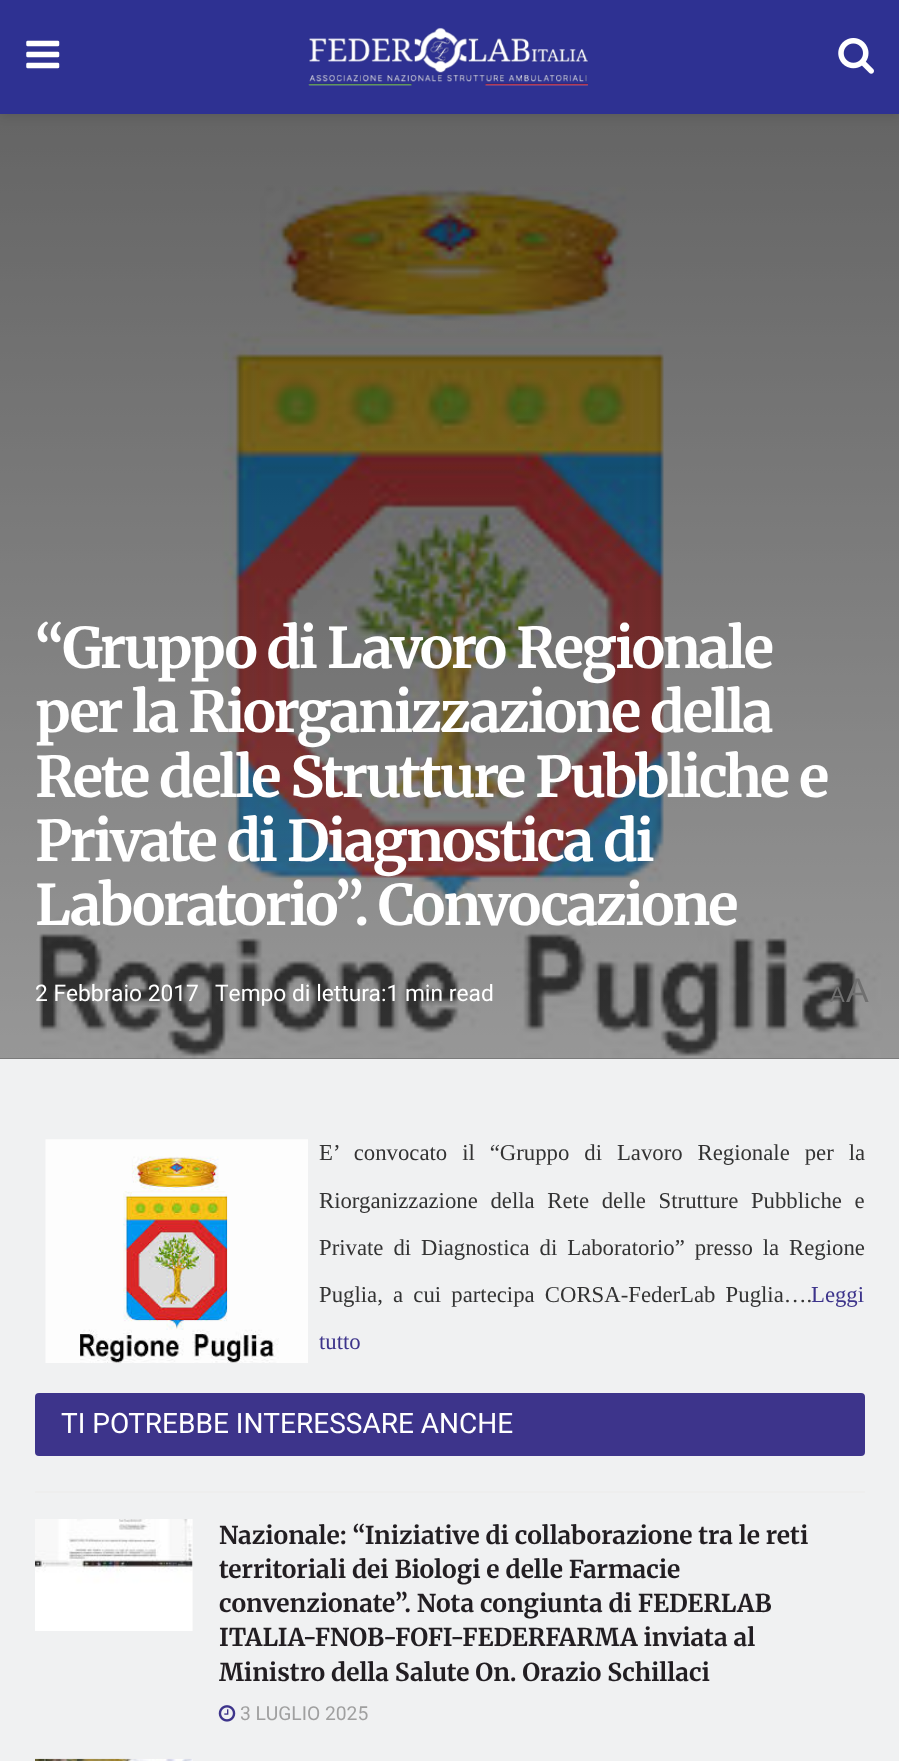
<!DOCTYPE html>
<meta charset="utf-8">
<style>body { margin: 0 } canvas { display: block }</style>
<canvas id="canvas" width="899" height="1761"></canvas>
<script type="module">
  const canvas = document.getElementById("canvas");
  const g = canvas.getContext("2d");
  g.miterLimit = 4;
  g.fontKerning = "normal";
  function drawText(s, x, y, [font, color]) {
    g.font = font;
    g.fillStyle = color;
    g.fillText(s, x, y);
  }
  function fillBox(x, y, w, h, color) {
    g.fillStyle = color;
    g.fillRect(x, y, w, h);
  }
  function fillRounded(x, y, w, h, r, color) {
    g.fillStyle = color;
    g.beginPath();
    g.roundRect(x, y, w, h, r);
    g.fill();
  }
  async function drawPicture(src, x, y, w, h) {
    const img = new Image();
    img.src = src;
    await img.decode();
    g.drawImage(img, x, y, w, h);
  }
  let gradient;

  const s1 = ["bold 56px Merriweather", "#FFFFFF"];
  const s2 = ["22.75px Heebo", "#FFFFFF"];
  const s3 = ["22px Liberation Sans", "#707070"];
  const s4 = ["34px Liberation Sans", "#707070"];
  const s5 = ["22.75px Liberation Serif", "#333333"];
  const s6 = ["22.75px Liberation Serif", "#3D348B"];
  const s7 = ["28px Heebo", "#FFFFFF"];
  const s8 = ["bold 24.5px Merriweather", "#221E22"];
  const s9 = ["19.25px Heebo", "#A0A0A0"];

  fillBox(0, 0, 899, 1761, "#F0F1F2");
  gradient = g.createLinearGradient(450, 114, 450, 1059);
  gradient.addColorStop(0, "#000000");
  gradient.addColorStop(1, "#545454");
  g.fillStyle = gradient;
  g.fillRect(0, 114, 899, 945);
  await drawPicture("pic4.png", 0, 114, 899, 945);
  g.fillStyle = "rgba(0, 0, 0, 0.1)";
  g.filter = "blur(5px)";
  g.beginPath();
  g.rect(0, 4, 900, 113);
  g.fill();
  g.filter = "none";
  fillBox(0, 0, 899, 114, "#2E3192");
  await drawPicture("pic1.png", 26, 40, 34, 29);
  await drawPicture("pic2.png", 308, 27, 280, 59);
  await drawPicture("pic3.png", 838, 38, 36, 36);
  g.letterSpacing = "-2.25px";
  drawText("“Gruppo di Lavoro Regionale", 35, 668, s1);
  drawText("per la Riorganizzazione della", 35, 732, s1);
  drawText("Rete delle Strutture Pubbliche e", 35, 797, s1);
  drawText("Private di Diagnostica di", 35, 861, s1);
  drawText("Laboratorio”. Convocazione", 35, 925, s1);
  g.letterSpacing = "0px";
  drawText("2 Febbraio 2017", 35, 1001, s2);
  drawText("Tempo di lettura:1 min read", 215, 1001, s2);
  drawText("A", 830, 1002, s3);
  drawText("A", 846, 1002, s4);
  await drawPicture("pic5.png", 45, 1139, 263, 224);
  g.wordSpacing = "9.25px";
  drawText("E’ convocato il “Gruppo di Lavoro Regionale per la", 319, 1160, s5);
  g.wordSpacing = "7px";
  drawText("Riorganizzazione della Rete delle Strutture Pubbliche e", 319, 1208, s5);
  g.wordSpacing = "4.25px";
  drawText("Private di Diagnostica di Laboratorio” presso la Regione", 319, 1255, s5);
  g.wordSpacing = "4.5px";
  drawText("Puglia, a cui partecipa CORSA-FederLab Puglia….", 319, 1302, s5);
  g.wordSpacing = "0px";
  drawText("Leggi", 811, 1302, s6);
  drawText("tutto", 319, 1349, s6);
  fillRounded(35, 1393, 830, 63, 4, "#3D348B");
  drawText("TI POTREBBE INTERESSARE ANCHE", 61, 1433, s7);
  fillBox(35, 1491, 830, 2, "#EEEEEE");
  fillBox(192, 1519, 1, 112, "#F7F7F7");
  await drawPicture("pic6.png", 35, 1519, 158, 112);
  drawText("Nazionale: “Iniziative di collaborazione tra le reti", 219, 1544, s8);
  drawText("territoriali dei Biologi e delle Farmacie", 219, 1578, s8);
  drawText("convenzionate”. Nota congiunta di FEDERLAB", 219, 1612, s8);
  drawText("ITALIA-FNOB-FOFI-FEDERFARMA inviata al", 219, 1646, s8);
  drawText("Ministro della Salute On. Orazio Schillaci", 219, 1681, s8);
  await drawPicture("pic7.png", 218, 1705, 18, 17);
  drawText("3 LUGLIO 2025", 240, 1720, s9);
  fillBox(192, 1759, 1, 2, "#F7F7F7");
  await drawPicture("pic8.png", 35, 1758, 158, 3);
</script>
